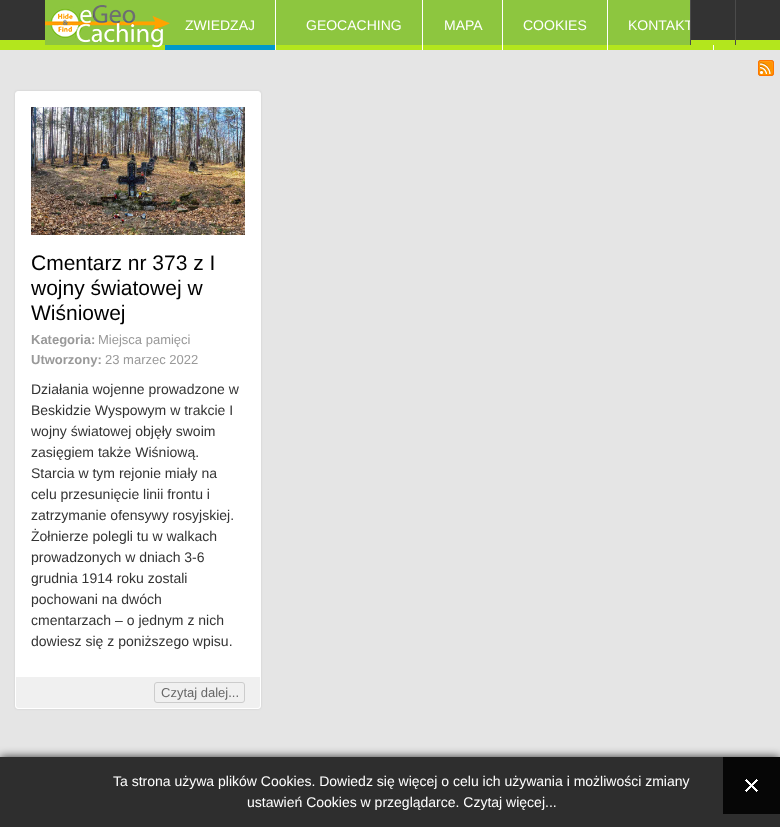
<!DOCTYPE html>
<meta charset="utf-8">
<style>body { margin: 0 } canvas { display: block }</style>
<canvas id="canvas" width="780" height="827"></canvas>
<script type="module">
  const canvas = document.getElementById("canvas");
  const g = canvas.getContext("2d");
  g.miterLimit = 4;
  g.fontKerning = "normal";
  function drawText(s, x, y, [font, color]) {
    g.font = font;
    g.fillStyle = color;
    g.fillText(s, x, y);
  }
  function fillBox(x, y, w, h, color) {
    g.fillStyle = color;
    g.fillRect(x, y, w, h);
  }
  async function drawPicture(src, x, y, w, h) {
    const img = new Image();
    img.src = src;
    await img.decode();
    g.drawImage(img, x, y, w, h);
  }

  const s1 = ["14px Liberation Sans", "#FFFFFF"];
  const s2 = ["21px Liberation Sans", "#000000"];
  const s3 = ["bold 13px Liberation Sans", "#999999"];
  const s4 = ["13px Liberation Sans", "#999999"];
  const s5 = ["14px Liberation Sans", "#333333"];
  const s6 = ["13px Liberation Sans", "#666666"];

  fillBox(0, 0, 780, 827, "#E5E5E5");
  fillBox(45, 0, 645, 45, "#8DC63F");
  fillBox(0, 45, 780, 5, "#B3E61D");
  fillBox(736, 0, 44, 40, "#333333");
  fillBox(690, 40, 90, 5, "#B3E61D");
  fillBox(735, 0, 1, 45, "#4B4B4B");
  fillBox(165, 45, 110, 5, "#0099CC");
  await drawPicture("pic1.png", 45, 5, 125, 42);
  fillBox(275, 0, 1, 50, "#FFFFFF");
  drawText("ZWIEDZAJ", 185, 30, s1);
  fillBox(422, 0, 1, 50, "#FFFFFF");
  drawText("GEOCACHING", 306, 30, s1);
  fillBox(502, 0, 1, 50, "#FFFFFF");
  drawText("MAPA", 444, 30, s1);
  fillBox(607, 0, 1, 50, "#FFFFFF");
  drawText("COOKIES", 523, 30, s1);
  fillBox(713, 45, 1, 5, "#FFFFFF");
  drawText("KONTAKT", 628, 30, s1);
  fillBox(691, 0, 44, 40, "#333333");
  fillBox(690, 0, 1, 45, "#4B4B4B");
  fillBox(0, 0, 45, 40, "#333333");
  fillBox(0, 40, 45, 5, "#B3E61D");
  await drawPicture("pic2.png", 758, 60, 16, 16);
  g.fillStyle = "rgba(0, 0, 0, 0.1)";
  g.filter = "blur(1px)";
  g.beginPath();
  g.roundRect(15, 91, 246, 618, 3);
  g.fill();
  g.filter = "none";
  g.fillStyle = "#FFFFFF";
  g.beginPath();
  g.roundRect(15.5, 91.5, 245, 617, 2.5);
  g.fill();
  g.strokeStyle = "#FFFFFF";
  g.stroke();
  await drawPicture("pic3.png", 31, 107, 214, 128);
  drawText("Cmentarz nr 373 z I", 31, 270, s2);
  drawText("wojny światowej w", 31, 295, s2);
  drawText("Wiśniowej", 31, 320, s2);
  drawText("Kategoria:", 31, 344, s3);
  drawText("Miejsca pamięci", 98, 344, s4);
  drawText("Utworzony:", 31, 364, s3);
  drawText("23 marzec 2022", 105, 364, s4);
  drawText("Działania wojenne prowadzone w", 31, 394, s5);
  drawText("Beskidzie Wyspowym w trakcie I", 31, 415, s5);
  drawText("wojny światowej objęły swoim", 31, 436, s5);
  drawText("zasięgiem także Wiśniową.", 31, 457, s5);
  drawText("Starcia w tym rejonie miały na", 31, 478, s5);
  drawText("celu przesunięcie linii frontu i", 31, 499, s5);
  drawText("zatrzymanie ofensywy rosyjskiej.", 31, 520, s5);
  drawText("Żołnierze polegli tu w walkach", 31, 541, s5);
  drawText("prowadzonych w dniach 3-6", 31, 562, s5);
  drawText("grudnia 1914 roku zostali", 31, 583, s5);
  drawText("pochowani na dwóch", 31, 604, s5);
  drawText("cmentarzach – o jednym z nich", 31, 625, s5);
  drawText("dowiesz się z poniższego wpisu.", 31, 646, s5);
  g.fillStyle = "#F0F0F0";
  g.beginPath();
  g.roundRect(16, 677, 244, 31, [0, 0, 3, 3]);
  g.fill();
  g.beginPath();
  g.roundRect(154.5, 682.5, 90, 20, 2.5);
  g.strokeStyle = "#CCCCCC";
  g.stroke();
  drawText("Czytaj dalej...", 161, 697, s6);
  g.fillStyle = "rgba(0, 0, 0, 0.8)";
  g.filter = "blur(5px)";
  g.beginPath();
  g.rect(0, 757, 780, 70);
  g.fill();
  g.filter = "none";
  fillBox(0, 757, 780, 70, "#2E2E2E");
  drawText("Ta strona używa plików Cookies. Dowiedz się więcej o celu ich używania i możliwości zmiany", 113, 786, s1);
  drawText("ustawień Cookies w przeglądarce. Czytaj więcej...", 247, 807, s1);
  fillBox(723, 757, 57, 57, "#060606");
  await drawPicture("pic4.png", 745, 779, 13, 13);
</script>
